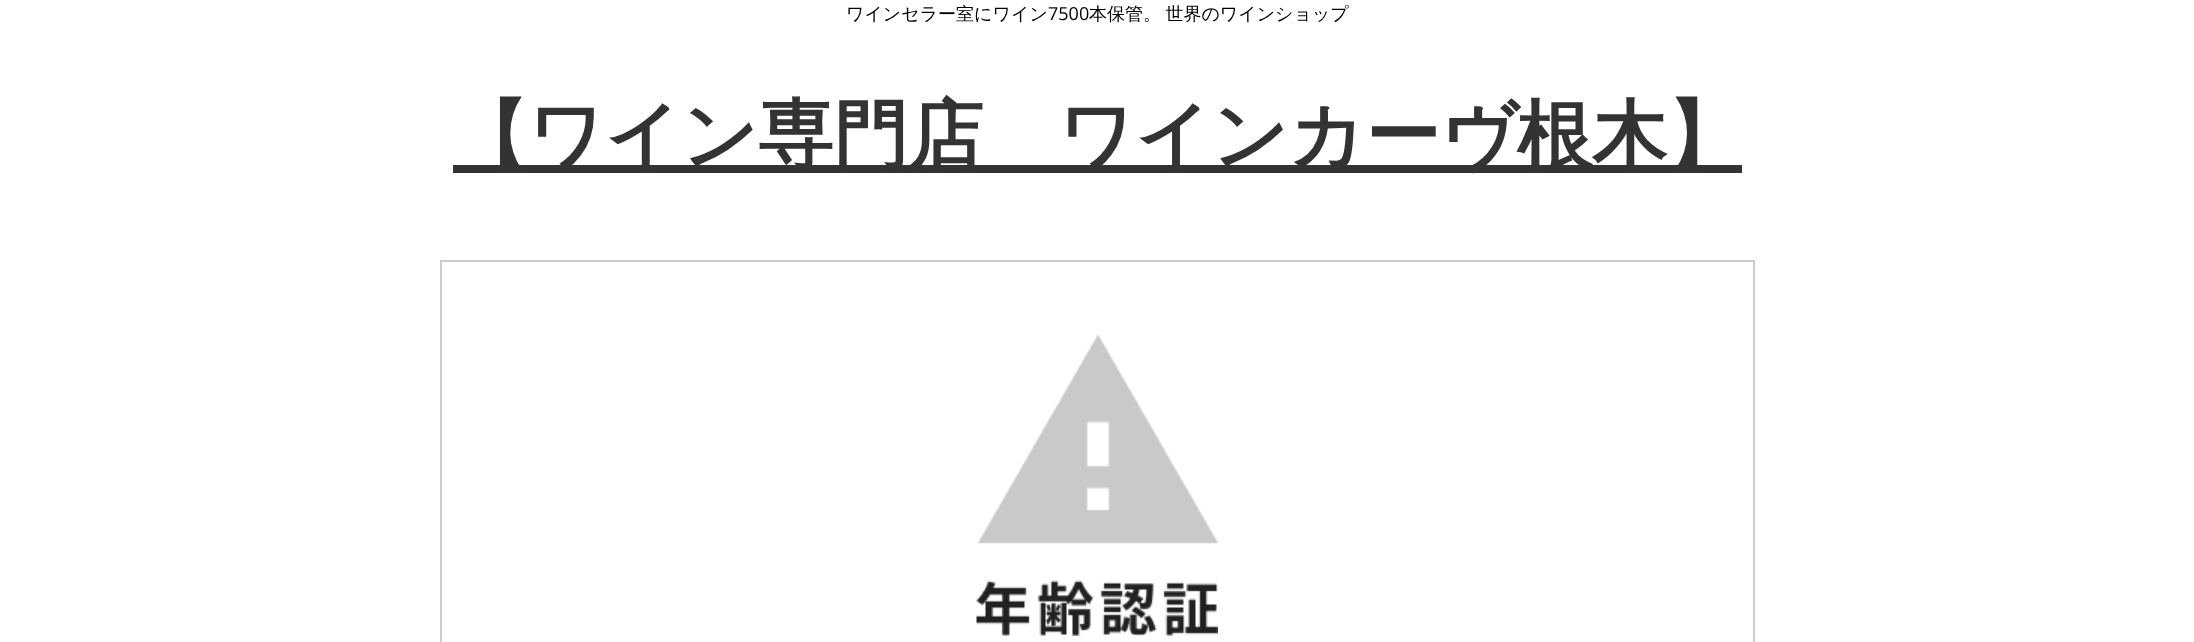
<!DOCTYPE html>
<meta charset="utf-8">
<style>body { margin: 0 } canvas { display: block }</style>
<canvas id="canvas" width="2194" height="642"></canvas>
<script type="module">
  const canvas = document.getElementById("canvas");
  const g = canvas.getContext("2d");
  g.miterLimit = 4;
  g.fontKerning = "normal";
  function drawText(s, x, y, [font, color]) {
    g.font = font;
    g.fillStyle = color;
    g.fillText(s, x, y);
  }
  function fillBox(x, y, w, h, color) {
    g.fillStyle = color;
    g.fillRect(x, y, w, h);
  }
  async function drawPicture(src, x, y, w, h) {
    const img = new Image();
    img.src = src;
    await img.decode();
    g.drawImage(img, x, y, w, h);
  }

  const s1 = ["500 18px WenQuanYi Zen Hei", "#000000"];
  const s2 = ["18px Open Sans", "#000000"];
  const s3 = ["bold 75px WenQuanYi Zen Hei", "#333333"];

  fillBox(0, 0, 2194, 642, "#FFFFFF");
  drawText("ワインセラー室にワイン", 846, 20, s1);
  drawText("7500", 1048, 20, s2);
  g.wordSpacing = "-1px";
  drawText("本保管。 世界のワインショップ", 1089, 20, s1);
  fillBox(453, 165, 1289, 8, "#333333");
  g.wordSpacing = "0px";
  drawText("【ワイン専門店　ワインカーヴ根木】", 453, 161, s3);
  g.strokeStyle = "#CCCCCC";
  g.lineWidth = 2;
  g.strokeRect(441, 261, 1313, 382);
  await drawPicture("pic1.png", 976, 334, 242, 302);
</script>
